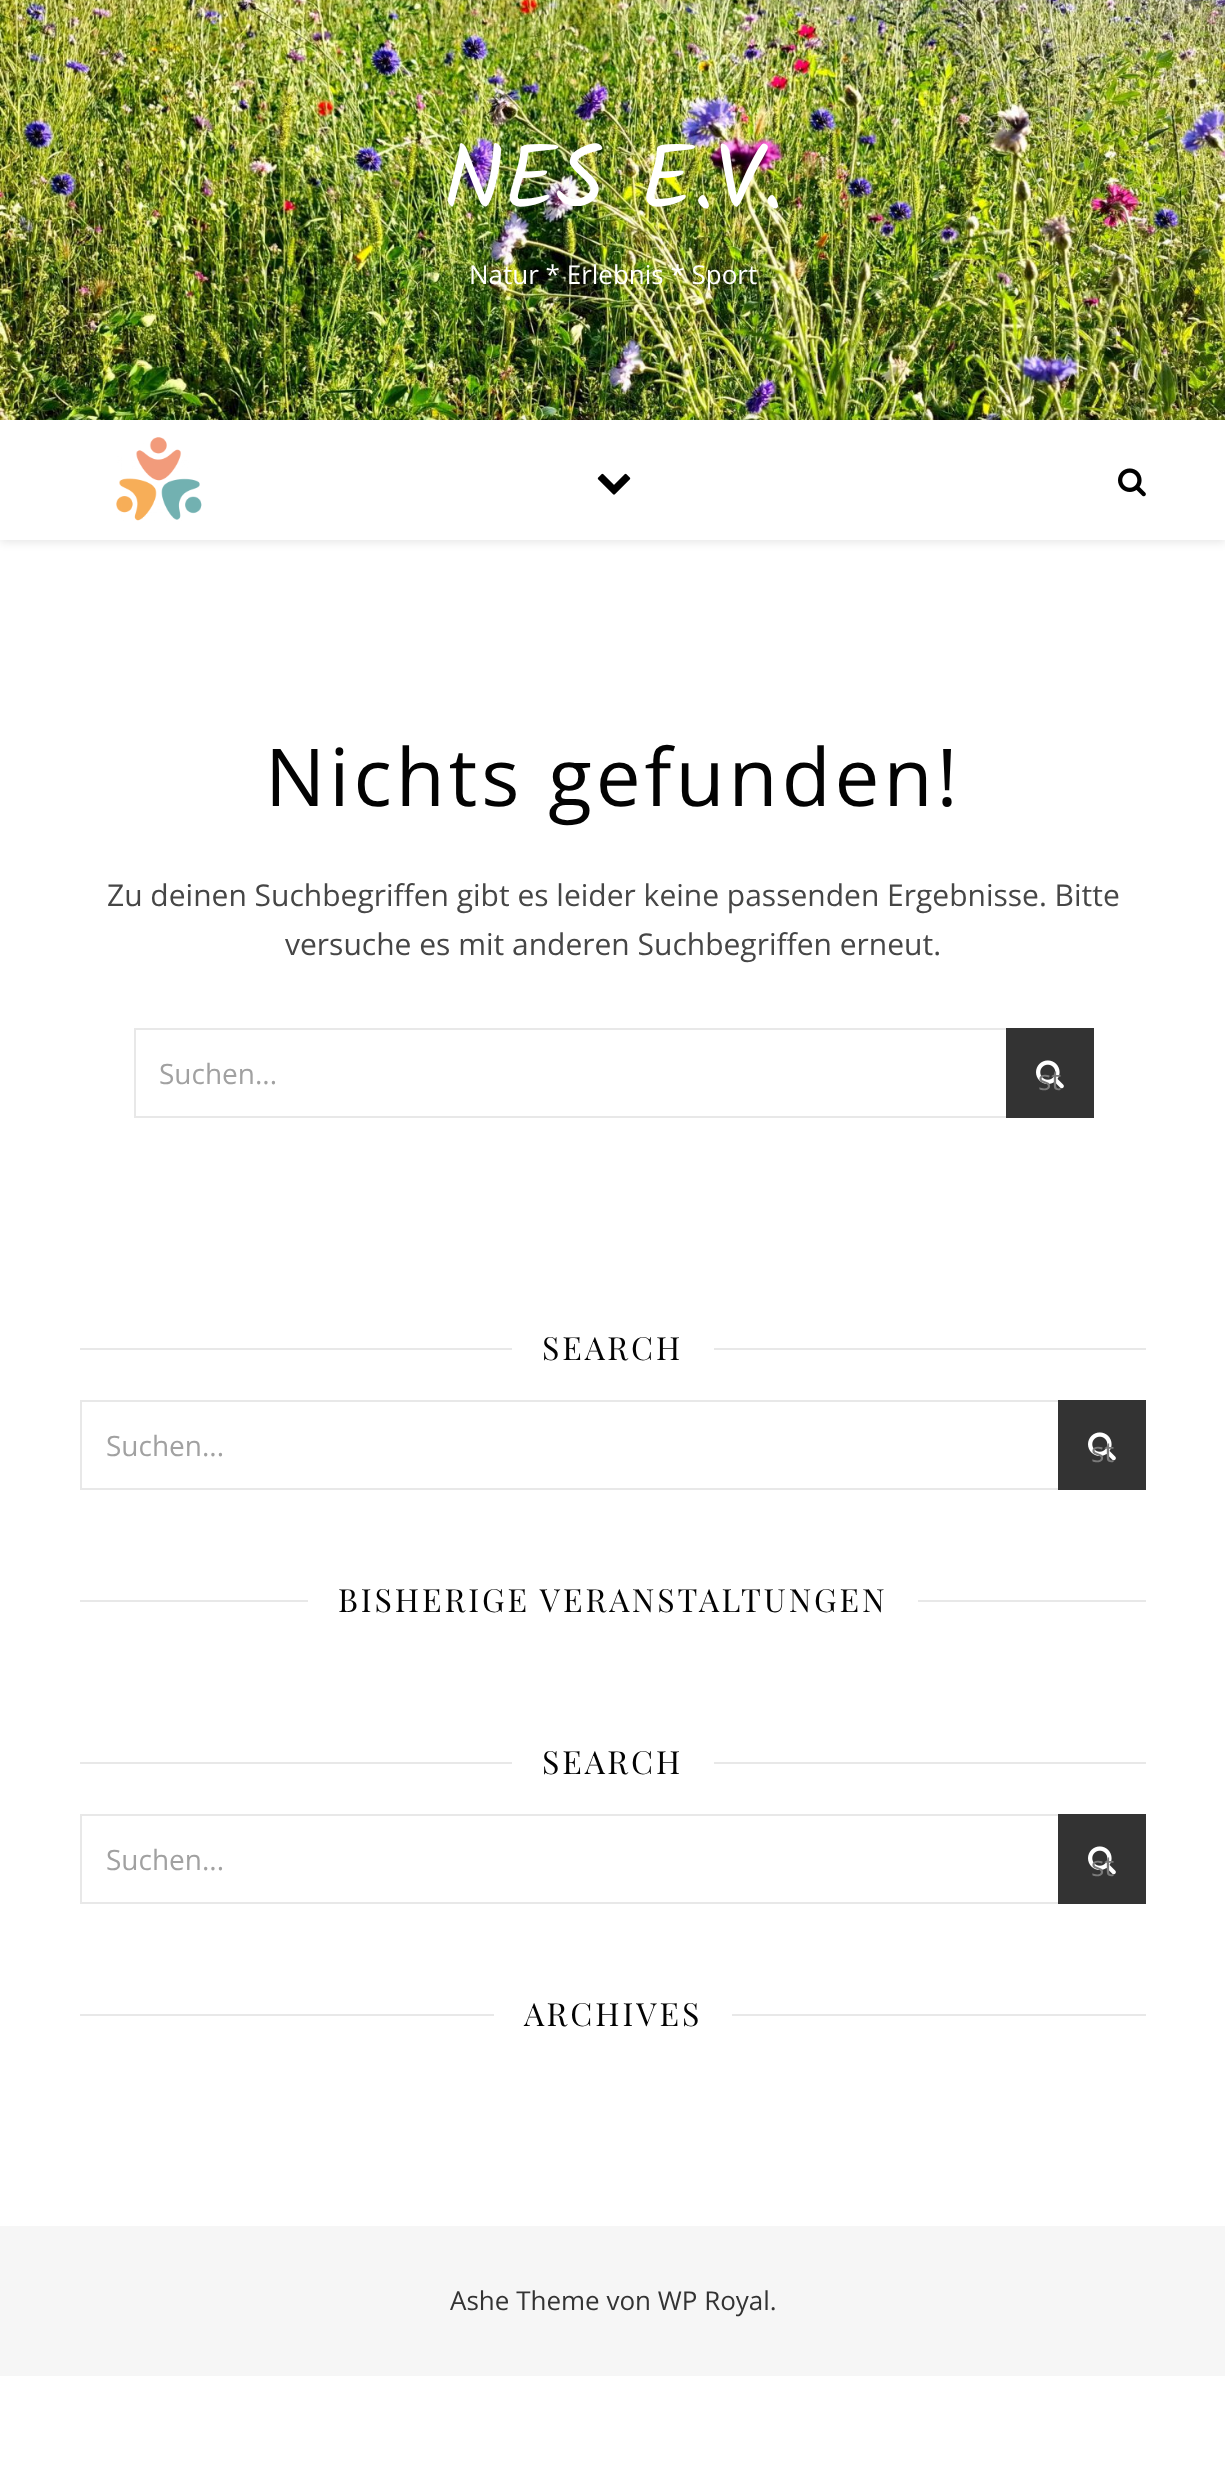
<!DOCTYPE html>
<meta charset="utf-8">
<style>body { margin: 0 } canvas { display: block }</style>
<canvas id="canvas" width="1225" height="2490"></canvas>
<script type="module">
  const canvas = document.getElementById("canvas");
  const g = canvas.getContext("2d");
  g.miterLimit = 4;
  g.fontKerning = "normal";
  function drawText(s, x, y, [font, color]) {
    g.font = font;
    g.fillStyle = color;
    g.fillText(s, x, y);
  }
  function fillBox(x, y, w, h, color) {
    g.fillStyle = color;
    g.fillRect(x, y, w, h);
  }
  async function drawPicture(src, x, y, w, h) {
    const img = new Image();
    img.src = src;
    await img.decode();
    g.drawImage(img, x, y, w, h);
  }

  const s1 = ["90px Kalam", "#FFFFFF"];
  const s2 = ["26px Open Sans", "#FFFFFF"];
  const s3 = ["80px Open Sans", "#030303"];
  const s4 = ["30px Open Sans", "#464646"];
  const s5 = ["28px Open Sans", "#A1A1A1"];
  const s6 = ["28px Open Sans", "#7A7A7A"];
  const s7 = ["32px Playfair Display", "#030303"];
  const s8 = ["26px Open Sans", "#333333"];

  fillBox(0, 0, 1225, 2490, "#FFFFFF");
  await drawPicture("pic1.png", 0, 0, 1225, 420);
  drawText("NES E.V.", 443, 208, s1);
  drawText("Natur * Erlebnis * Sport", 469, 284, s2);
  g.save();
  g.beginPath();
  g.moveTo(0, 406);
  g.lineTo(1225, 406);
  g.lineTo(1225, 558);
  g.lineTo(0, 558);
  g.closePath();
  g.moveTo(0, 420);
  g.lineTo(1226, 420);
  g.lineTo(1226, 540);
  g.lineTo(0, 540);
  g.closePath();
  g.clip("evenodd");
  g.fillStyle = "rgba(0, 0, 0, 0.1)";
  g.filter = "blur(5px)";
  g.beginPath();
  g.rect(0, 422, 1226, 120);
  g.fill();
  g.filter = "none";
  g.restore();
  await drawPicture("pic2.png", 116, 437, 86, 84);
  await drawPicture("pic3.png", 597, 473, 34, 22);
  await drawPicture("pic4.png", 1118, 468, 28, 29);
  g.letterSpacing = "4px";
  drawText("Nichts gefunden!", 265, 806, s3);
  g.letterSpacing = "0px";
  drawText("Zu deinen Suchbegriffen gibt es leider keine passenden Ergebnisse. Bitte", 107, 906, s4);
  drawText("versuche es mit anderen Suchbegriffen erneut.", 285, 955, s4);
  g.strokeStyle = "#E8E8E8";
  g.lineWidth = 2;
  g.strokeRect(135, 1029, 958, 88);
  drawText("Suchen...", 159, 1084, s5);
  fillBox(1006, 1028, 88, 90, "#333333");
  await drawPicture("pic5.png", 1036, 1060, 28, 29);
  drawText("st", 1038, 1090, s6);
  fillBox(80, 1348, 432, 2, "#E8E8E8");
  g.letterSpacing = "3px";
  drawText("SEARCH", 542, 1360, s7);
  fillBox(714, 1348, 432, 2, "#E8E8E8");
  g.strokeRect(81, 1401, 1064, 88);
  g.letterSpacing = "0px";
  drawText("Suchen...", 106, 1456, s5);
  fillBox(1058, 1400, 88, 90, "#333333");
  await drawPicture("pic5.png", 1088, 1432, 28, 29);
  drawText("st", 1091, 1462, s6);
  fillBox(80, 1600, 228, 2, "#E8E8E8");
  g.letterSpacing = "3px";
  drawText("BISHERIGE VERANSTALTUNGEN", 338, 1612, s7);
  fillBox(918, 1600, 228, 2, "#E8E8E8");
  fillBox(80, 1762, 432, 2, "#E8E8E8");
  drawText("SEARCH", 542, 1774, s7);
  fillBox(714, 1762, 432, 2, "#E8E8E8");
  g.strokeRect(81, 1815, 1064, 88);
  g.letterSpacing = "0px";
  drawText("Suchen...", 106, 1870, s5);
  fillBox(1058, 1814, 88, 90, "#333333");
  await drawPicture("pic5.png", 1088, 1846, 28, 29);
  drawText("st", 1091, 1876, s6);
  fillBox(80, 2014, 414, 2, "#E8E8E8");
  g.letterSpacing = "3px";
  drawText("ARCHIVES", 524, 2026, s7);
  fillBox(732, 2014, 414, 2, "#E8E8E8");
  fillBox(0, 2226, 1225, 150, "#F6F6F6");
  g.letterSpacing = "0px";
  drawText("Ashe Theme von WP Royal.", 450, 2310, s8);
</script>
